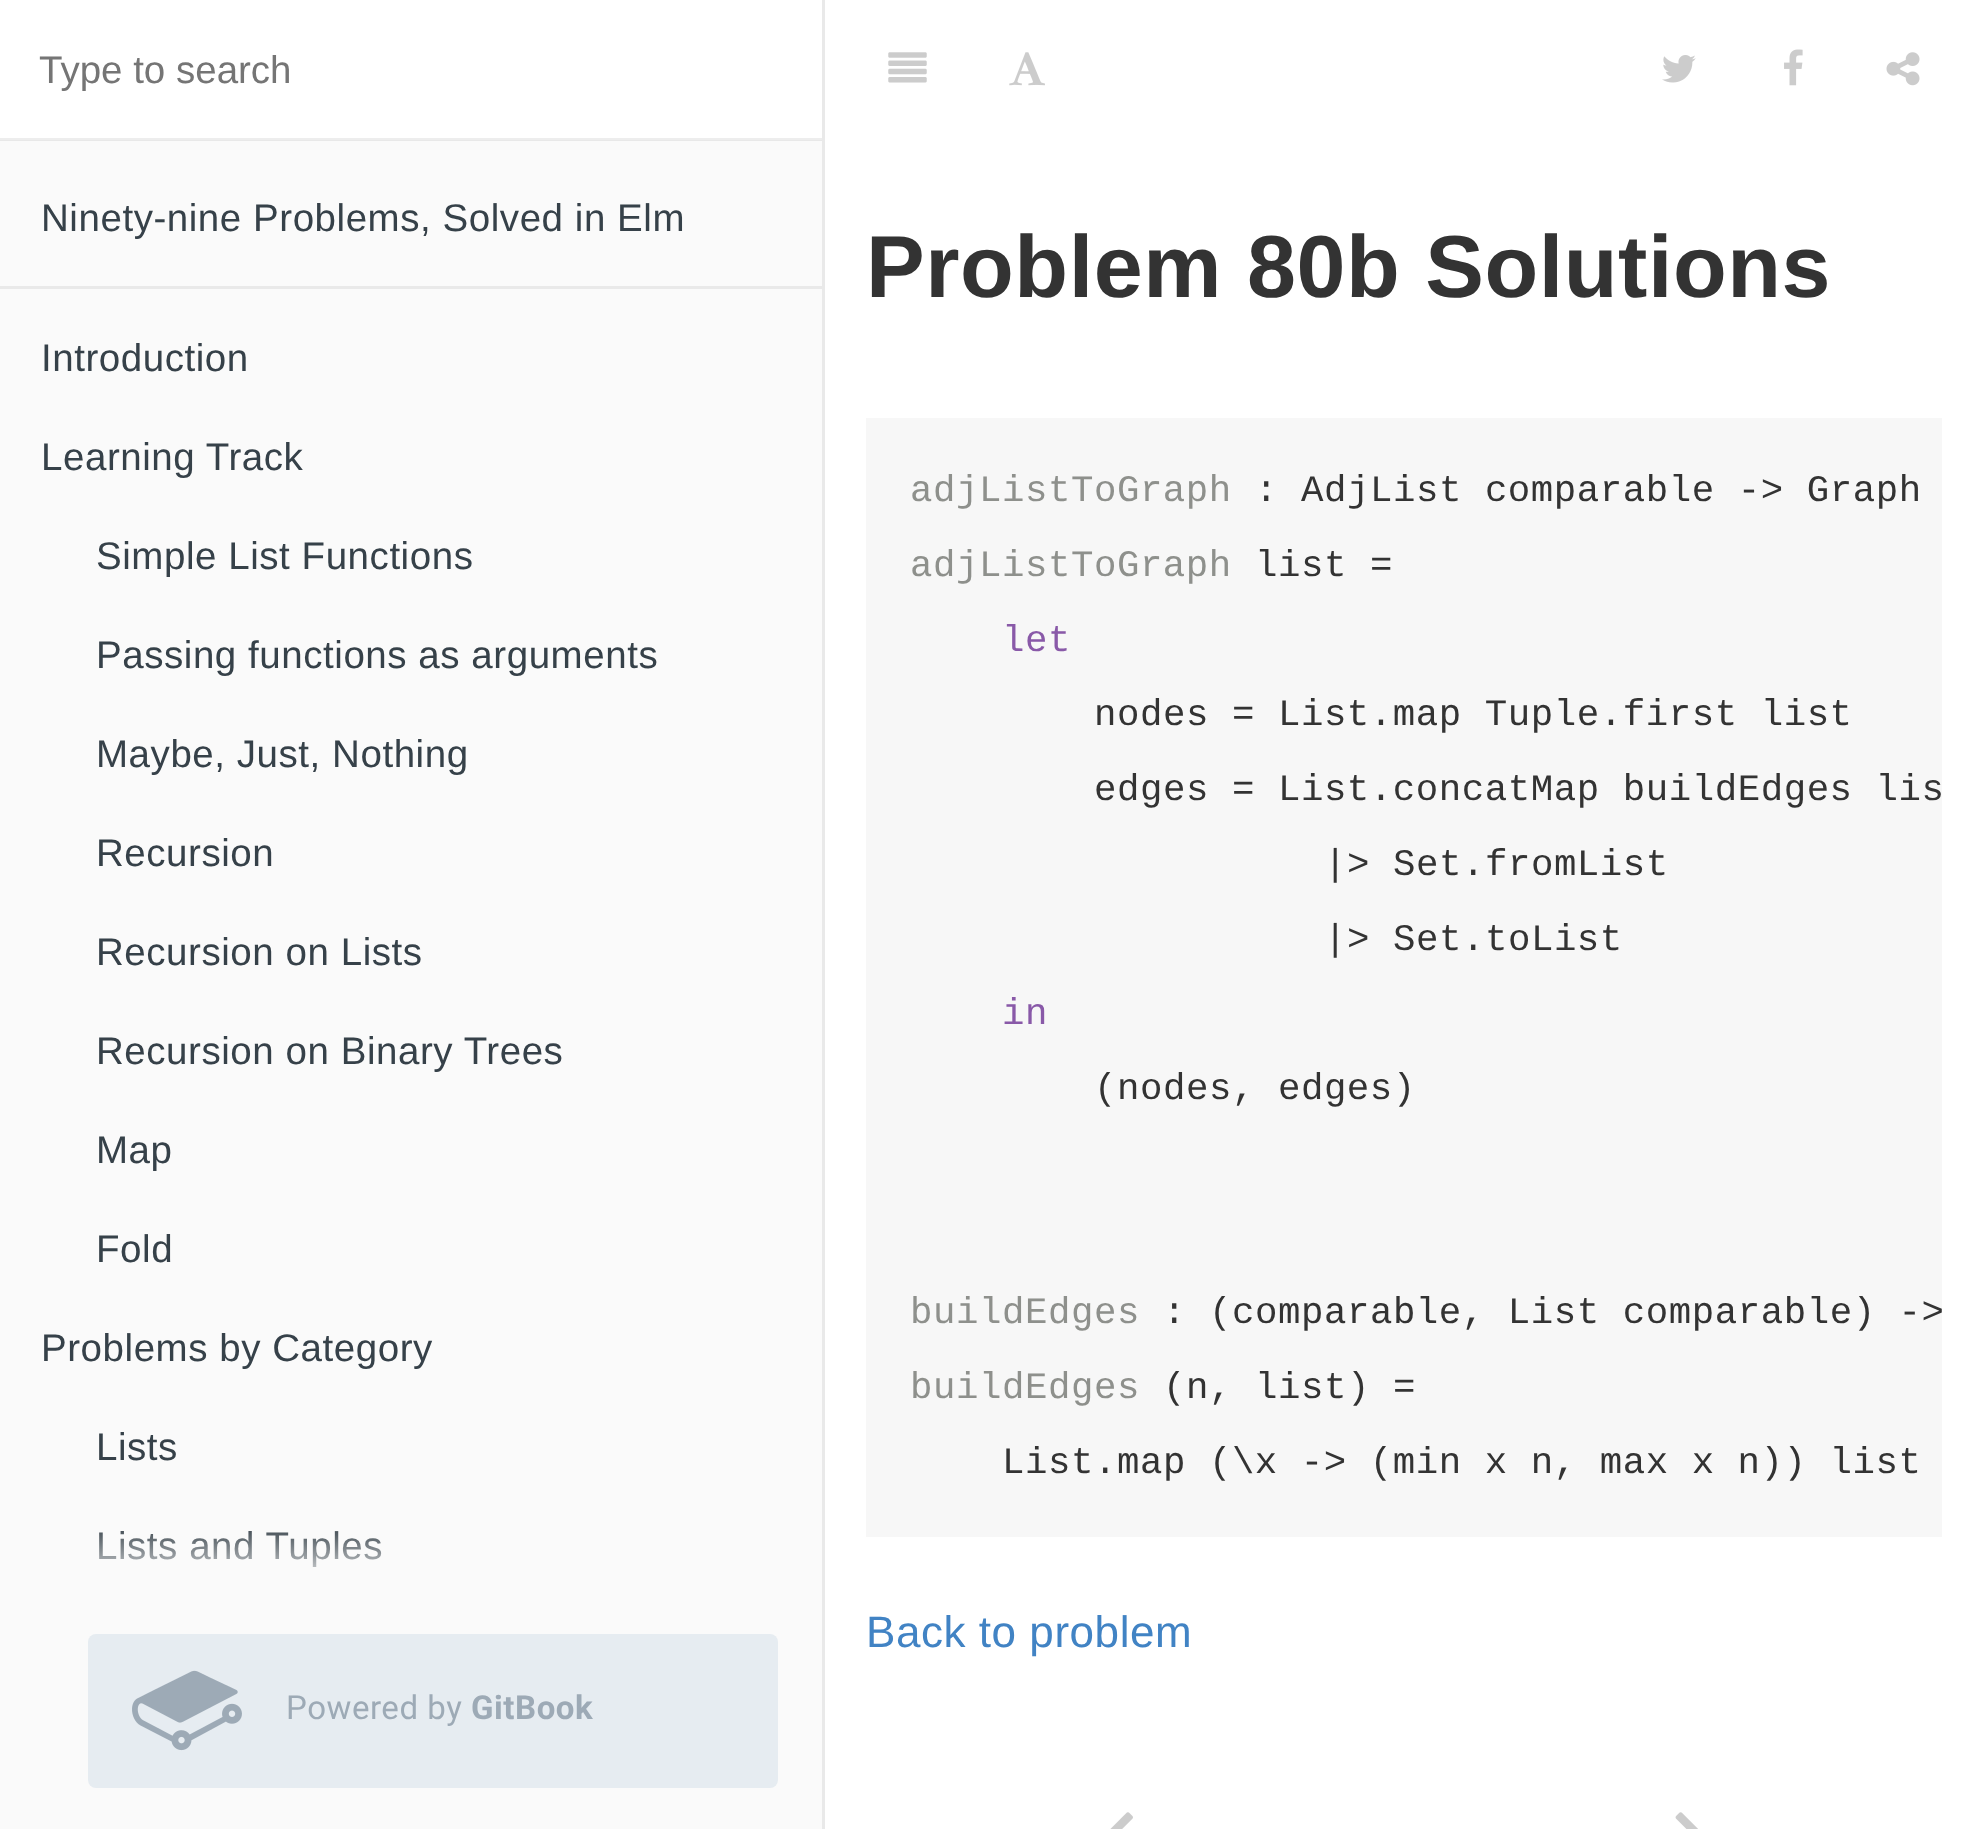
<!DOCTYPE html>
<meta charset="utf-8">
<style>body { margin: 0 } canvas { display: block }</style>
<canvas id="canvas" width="1982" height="1829"></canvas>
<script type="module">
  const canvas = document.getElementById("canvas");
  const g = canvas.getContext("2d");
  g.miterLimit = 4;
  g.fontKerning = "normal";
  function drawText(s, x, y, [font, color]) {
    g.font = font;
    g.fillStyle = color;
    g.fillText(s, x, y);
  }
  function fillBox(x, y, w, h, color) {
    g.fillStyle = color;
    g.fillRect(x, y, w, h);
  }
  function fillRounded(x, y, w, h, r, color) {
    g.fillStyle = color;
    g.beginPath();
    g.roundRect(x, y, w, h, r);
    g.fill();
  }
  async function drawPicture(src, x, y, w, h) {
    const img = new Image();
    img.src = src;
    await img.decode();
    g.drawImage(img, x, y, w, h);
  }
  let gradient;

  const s1 = ["38.5px Liberation Sans", "#757575"];
  const s2 = ["38.5px Liberation Sans", "#364149"];
  const s3 = ["33px Roboto", "#9DAAB6"];
  const s4 = ["bold 33px Roboto", "#9DAAB6"];
  const s5 = ["bold 88px Liberation Sans", "#333333"];
  const s6 = ["37.4px Liberation Mono", "#8E908C"];
  const s7 = ["37.4px Liberation Mono", "#333333"];
  const s8 = ["37.4px Liberation Mono", "#8959A8"];
  const s9 = ["44px Liberation Sans", "#4183C4"];

  fillBox(0, 0, 1982, 1829, "#FFFFFF");
  fillBox(0, 141, 822, 1688, "#FAFAFA");
  fillBox(0, 140, 822, 1, "#E8E8E8");
  fillBox(822, 0, 3, 1829, "#E9E9E9");
  fillBox(0, 138, 822, 2, "#EDEDED");
  drawText("Type to search", 39, 83, s1);
  g.letterSpacing = "0.55px";
  drawText("Ninety-nine Problems, Solved in Elm", 41, 231, s2);
  fillBox(0, 286, 822, 3, "#E9E9E9");
  drawText("Introduction", 41, 371, s2);
  drawText("Learning Track", 41, 470, s2);
  drawText("Simple List Functions", 96, 569, s2);
  drawText("Passing functions as arguments", 96, 668, s2);
  drawText("Maybe, Just, Nothing", 96, 767, s2);
  drawText("Recursion", 96, 866, s2);
  drawText("Recursion on Lists", 96, 965, s2);
  drawText("Recursion on Binary Trees", 96, 1064, s2);
  drawText("Map", 96, 1163, s2);
  drawText("Fold", 96, 1262, s2);
  drawText("Problems by Category", 41, 1361, s2);
  drawText("Lists", 96, 1460, s2);
  drawText("Lists and Tuples", 96, 1559, s2);
  gradient = g.createLinearGradient(411, 1524, 411, 1590);
  gradient.addColorStop(0, "rgba(250, 250, 250, 0)");
  gradient.addColorStop(1, "#FAFAFA");
  g.fillStyle = gradient;
  g.fillRect(99, 1531, 283, 36);
  fillRounded(88, 1634, 690, 154, 8, "#E6ECF1");
  await drawPicture("pic1.png", 132, 1670, 110, 81);
  drawText("Powered by", 286, 1719, s3);
  drawText("GitBook", 471, 1719, s4);
  await drawPicture("pic2.png", 888, 52, 39, 31);
  await drawPicture("pic3.png", 1009, 52, 36, 34);
  await drawPicture("pic4.png", 1662, 55, 34, 28);
  await drawPicture("pic5.png", 1784, 49, 19, 37);
  await drawPicture("pic6.png", 1886, 52, 34, 34);
  drawText("Problem 80b Solutions", 866, 297, s5);
  fillBox(866, 418, 1076, 1119, "#F7F7F7");
  drawText("adjListToGraph", 910, 501, s6);
  drawText(": AdjList comparable -> Graph", 1255, 501, s7);
  drawText("adjListToGraph", 910, 576, s6);
  drawText("list =", 1255, 576, s7);
  drawText("let", 1002, 651, s8);
  drawText("nodes = List.map Tuple.first list", 1094, 725, s7);
  drawText("edges = List.concatMap buildEdges lis", 1094, 800, s7);
  drawText("|> Set.fromList", 1324, 875, s7);
  drawText("|> Set.toList", 1324, 950, s7);
  drawText("in", 1002, 1024, s8);
  drawText("(nodes, edges)", 1094, 1099, s7);
  drawText("buildEdges", 910, 1323, s6);
  drawText(": (comparable, List comparable) ->", 1163, 1323, s7);
  drawText("buildEdges", 910, 1398, s6);
  drawText("(n, list) =", 1163, 1398, s7);
  drawText("List.map (\\x -> (min x n, max x n)) list", 1002, 1473, s7);
  drawText("Back to problem", 866, 1647, s9);
  await drawPicture("pic7.png", 1110, 1812, 23, 17);
  await drawPicture("pic8.png", 1675, 1812, 23, 17);
</script>
